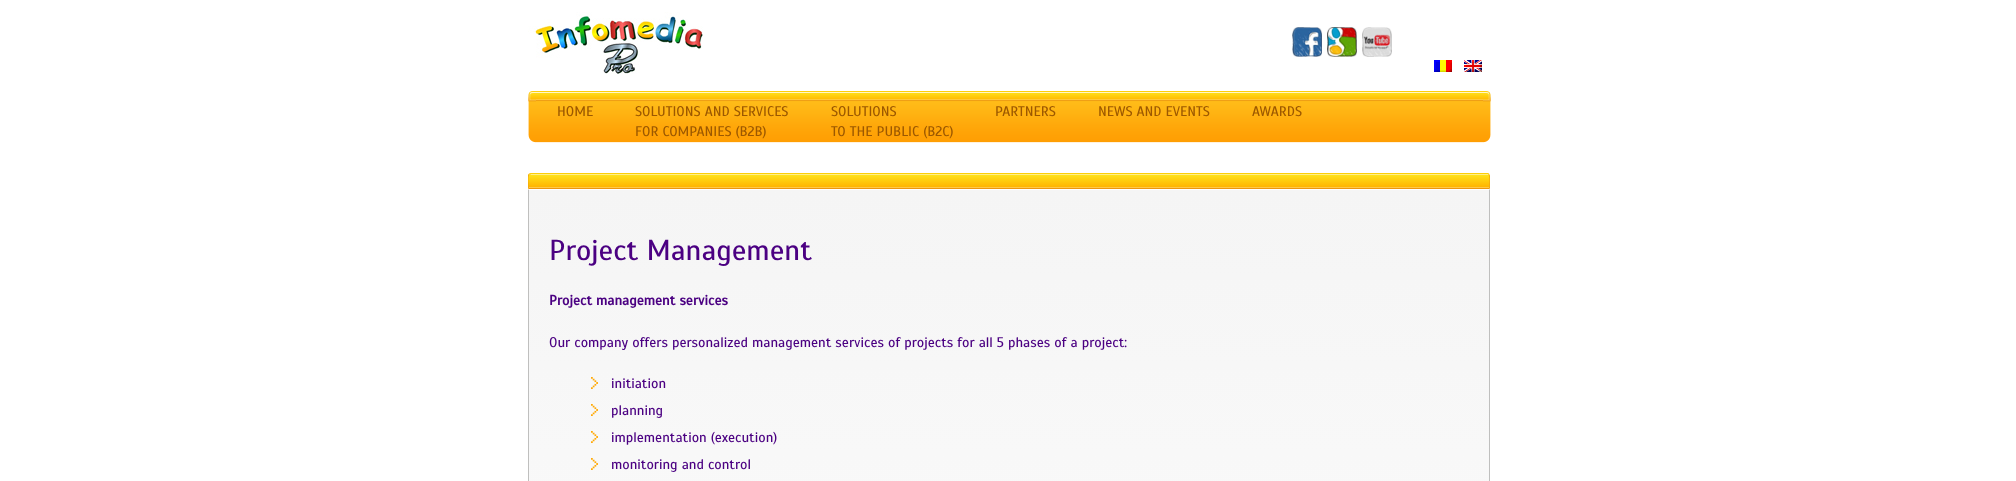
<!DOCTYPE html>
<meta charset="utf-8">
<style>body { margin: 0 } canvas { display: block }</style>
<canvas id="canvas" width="2016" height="481"></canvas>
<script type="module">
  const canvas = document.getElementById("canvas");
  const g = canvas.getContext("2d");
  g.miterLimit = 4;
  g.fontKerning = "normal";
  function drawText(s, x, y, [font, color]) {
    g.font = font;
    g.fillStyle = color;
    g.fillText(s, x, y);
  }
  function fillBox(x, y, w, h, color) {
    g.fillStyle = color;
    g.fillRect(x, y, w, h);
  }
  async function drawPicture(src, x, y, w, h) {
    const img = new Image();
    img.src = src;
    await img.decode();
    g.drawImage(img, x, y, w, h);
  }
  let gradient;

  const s1 = ["14px Scada", "#9C5801"];
  const s2 = ["29px Scada", "#4B0082"];
  const s3 = ["bold 14px Scada", "#4B0082"];
  const s4 = ["14px Scada", "#4B0082"];

  fillBox(0, 0, 2016, 481, "#FFFFFF");
  await drawPicture("pic1.png", 528, 12, 175, 62);
  await drawPicture("pic2.png", 1292, 27, 30, 30);
  await drawPicture("pic3.png", 1327, 27, 30, 30);
  await drawPicture("pic4.png", 1362, 27, 30, 30);
  await drawPicture("pic5.png", 1434, 60, 18, 12);
  await drawPicture("pic6.png", 1464, 60, 18, 12);
  await drawPicture("pic7.png", 536, 91, 947, 52);
  await drawPicture("pic8.png", 528, 91, 8, 52);
  drawText("HOME", 557, 116, s1);
  drawText("SOLUTIONS AND SERVICES", 635, 116, s1);
  drawText("FOR COMPANIES (B2B)", 635, 136, s1);
  drawText("SOLUTIONS", 831, 116, s1);
  drawText("TO THE PUBLIC (B2C)", 831, 136, s1);
  drawText("PARTNERS", 995, 116, s1);
  drawText("NEWS AND EVENTS", 1098, 116, s1);
  drawText("AWARDS", 1252, 116, s1);
  await drawPicture("pic9.png", 1483, 91, 8, 52);
  g.save();
  g.beginPath();
  g.roundRect(528, 173, 962, 16, [3, 3, 0, 0]);
  g.clip();
  gradient = g.createLinearGradient(1009, 160, 1009, 174);
  gradient.addColorStop(0, "#FFFFFF");
  gradient.addColorStop(0.07, "#FFE119");
  gradient.addColorStop(0.93, "#FFB400");
  gradient.addColorStop(1, "#FFDE93");
  g.fillStyle = gradient;
  g.fillRect(528, 173, 962, 1);
  gradient = g.createLinearGradient(1009, 174, 1009, 188);
  gradient.addColorStop(0, "#FFFFFF");
  gradient.addColorStop(0.07, "#FFE119");
  gradient.addColorStop(0.93, "#FFB400");
  gradient.addColorStop(1, "#FFDE93");
  g.fillStyle = gradient;
  g.fillRect(528, 174, 962, 14);
  g.restore();
  g.fillStyle = "#FDCE08";
  g.beginPath();
  g.moveTo(531, 173);
  g.lineTo(529, 174);
  g.lineTo(530, 175);
  g.lineTo(531, 174);
  g.lineTo(1488, 174);
  g.lineTo(1488, 175);
  g.lineTo(1489, 174);
  g.lineTo(1488, 173);
  g.closePath();
  g.fill();
  g.fillStyle = "#F3AA0D";
  g.beginPath();
  g.moveTo(1490, 176);
  g.lineTo(1490, 189);
  g.lineTo(1489, 188);
  g.bezierCurveTo(1489, 184.5, 1490, 177.5, 1488.5, 174.5);
  g.lineTo(1489, 174);
  g.closePath();
  g.fill();
  g.fillStyle = "#ED9610";
  g.beginPath();
  g.moveTo(1490, 189);
  g.lineTo(1489, 188);
  g.lineTo(529, 188);
  g.lineTo(528, 189);
  g.closePath();
  g.fill();
  g.fillStyle = "#F3AA0D";
  g.beginPath();
  g.moveTo(528, 189);
  g.lineTo(529, 188);
  g.bezierCurveTo(529, 184.5, 527.5, 177.5, 529.5, 174.5);
  g.lineTo(529, 174);
  g.bezierCurveTo(528, 174, 528, 175, 528, 176);
  g.closePath();
  g.fill();
  gradient = g.createLinearGradient(1009, 190, 1009, 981);
  gradient.addColorStop(0, "#F5F5F5");
  gradient.addColorStop(1, "#FEFEFE");
  g.fillStyle = gradient;
  g.fillRect(529, 190, 960, 291);
  g.fillStyle = "#BFBFBE";
  g.beginPath();
  g.moveTo(1490, 189);
  g.lineTo(1489, 190);
  g.lineTo(1489, 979);
  g.lineTo(1488, 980);
  g.lineTo(1489, 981);
  g.lineTo(1490, 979);
  g.closePath();
  g.fill();
  g.beginPath();
  g.moveTo(529, 190);
  g.lineTo(528, 189);
  g.lineTo(528, 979);
  g.lineTo(529, 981);
  g.lineTo(530, 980);
  g.lineTo(529, 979);
  g.closePath();
  g.fill();
  drawText("Project Management", 549, 260, s2);
  drawText("Project management services", 549, 305, s3);
  drawText("Our company offers personalized management services of projects for all 5 phases of a project:", 549, 347, s4);
  await drawPicture("pic10.png", 591, 377, 7, 12);
  drawText("initiation", 611, 388, s4);
  await drawPicture("pic11.png", 591, 404, 7, 12);
  drawText("planning", 611, 415, s4);
  await drawPicture("pic12.png", 591, 431, 7, 12);
  drawText("implementation (execution)", 611, 442, s4);
  await drawPicture("pic12.png", 591, 458, 7, 12);
  drawText("monitoring and control", 611, 469, s4);
</script>
